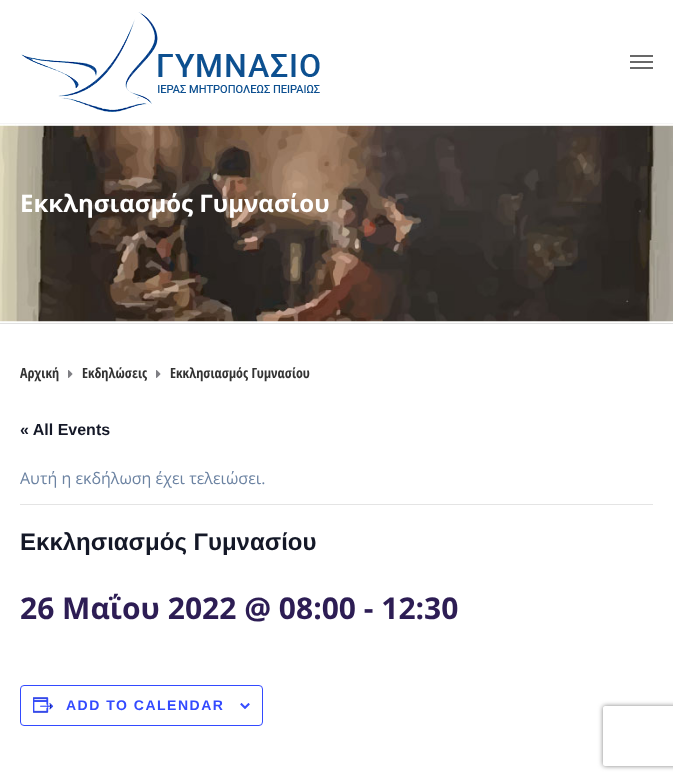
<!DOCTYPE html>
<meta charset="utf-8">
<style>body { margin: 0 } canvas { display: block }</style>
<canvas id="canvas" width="673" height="780"></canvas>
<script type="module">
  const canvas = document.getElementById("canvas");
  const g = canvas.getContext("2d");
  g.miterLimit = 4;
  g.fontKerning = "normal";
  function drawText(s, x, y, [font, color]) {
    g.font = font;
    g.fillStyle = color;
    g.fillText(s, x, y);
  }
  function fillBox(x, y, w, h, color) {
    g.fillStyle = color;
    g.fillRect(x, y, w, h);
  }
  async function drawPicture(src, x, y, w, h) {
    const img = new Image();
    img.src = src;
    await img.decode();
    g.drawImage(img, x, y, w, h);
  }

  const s1 = ["bold 24px Open Sans", "#FFFFFF"];
  const s2 = ["bold 14px Open Sans Condensed", "#333333"];
  const s3 = ["bold 16px Liberation Sans", "#141827"];
  const s4 = ["16px Open Sans", "#6C83A2"];
  const s5 = ["bold 24px Liberation Sans", "#141827"];
  const s6 = ["bold 30px Open Sans", "#2D1D54"];
  const s7 = ["bold 14px Liberation Sans", "#334AFF"];

  fillBox(0, 0, 673, 780, "#FFFFFF");
  fillBox(0, 123, 673, 1, "#F5F5F5");
  await drawPicture("pic1.png", 21, 12, 299, 100);
  fillBox(630, 55, 23, 2, "#686868");
  fillBox(630, 61, 23, 2, "#686868");
  fillBox(630, 67, 23, 2, "#686868");
  await drawPicture("pic2.png", 0, 124, 673, 199);
  fillBox(0, 323, 673, 1, "#E1E1E1");
  drawText("Εκκλησιασμός Γυμνασίου", 20, 212, s1);
  drawText("Αρχική", 20, 378, s2);
  await drawPicture("pic3.png", 68, 370, 5, 8);
  drawText("Εκδηλώσεις", 82, 378, s2);
  await drawPicture("pic3.png", 156, 370, 5, 8);
  drawText("Εκκλησιασμός Γυμνασίου", 170, 378, s2);
  drawText("« All Events", 20, 435, s3);
  fillBox(20, 504, 633, 1, "#E4E4E4");
  drawText("Αυτή η εκδήλωση έχει τελειώσει.", 20, 484, s4);
  drawText("Εκκλησιασμός Γυμνασίου", 20, 550, s5);
  drawText("26 Μαΐου 2022 @ 08:00 - 12:30", 20, 619, s6);
  g.beginPath();
  g.roundRect(20.5, 685.5, 242, 40, 3.5);
  g.strokeStyle = "#334AFF";
  g.stroke();
  await drawPicture("pic4.png", 33, 697, 21, 16);
  g.letterSpacing = "1.5px";
  drawText("ADD TO CALENDAR", 66, 710, s7);
  await drawPicture("pic5.png", 240, 703, 10, 6);
  g.save();
  g.beginPath();
  g.moveTo(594, 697);
  g.lineTo(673, 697);
  g.lineTo(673, 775);
  g.lineTo(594, 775);
  g.closePath();
  g.moveTo(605, 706);
  g.lineTo(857, 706);
  g.bezierCurveTo(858, 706, 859, 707, 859, 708);
  g.lineTo(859, 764);
  g.bezierCurveTo(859, 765, 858, 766, 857, 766);
  g.lineTo(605, 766);
  g.bezierCurveTo(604, 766, 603, 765, 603, 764);
  g.lineTo(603, 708);
  g.bezierCurveTo(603, 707, 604, 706, 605, 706);
  g.closePath();
  g.clip("evenodd");
  g.fillStyle = "#808080";
  g.filter = "blur(2.5px)";
  g.beginPath();
  g.roundRect(603, 706, 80, 60, 2);
  g.fill();
  g.filter = "none";
  g.restore();
</script>
